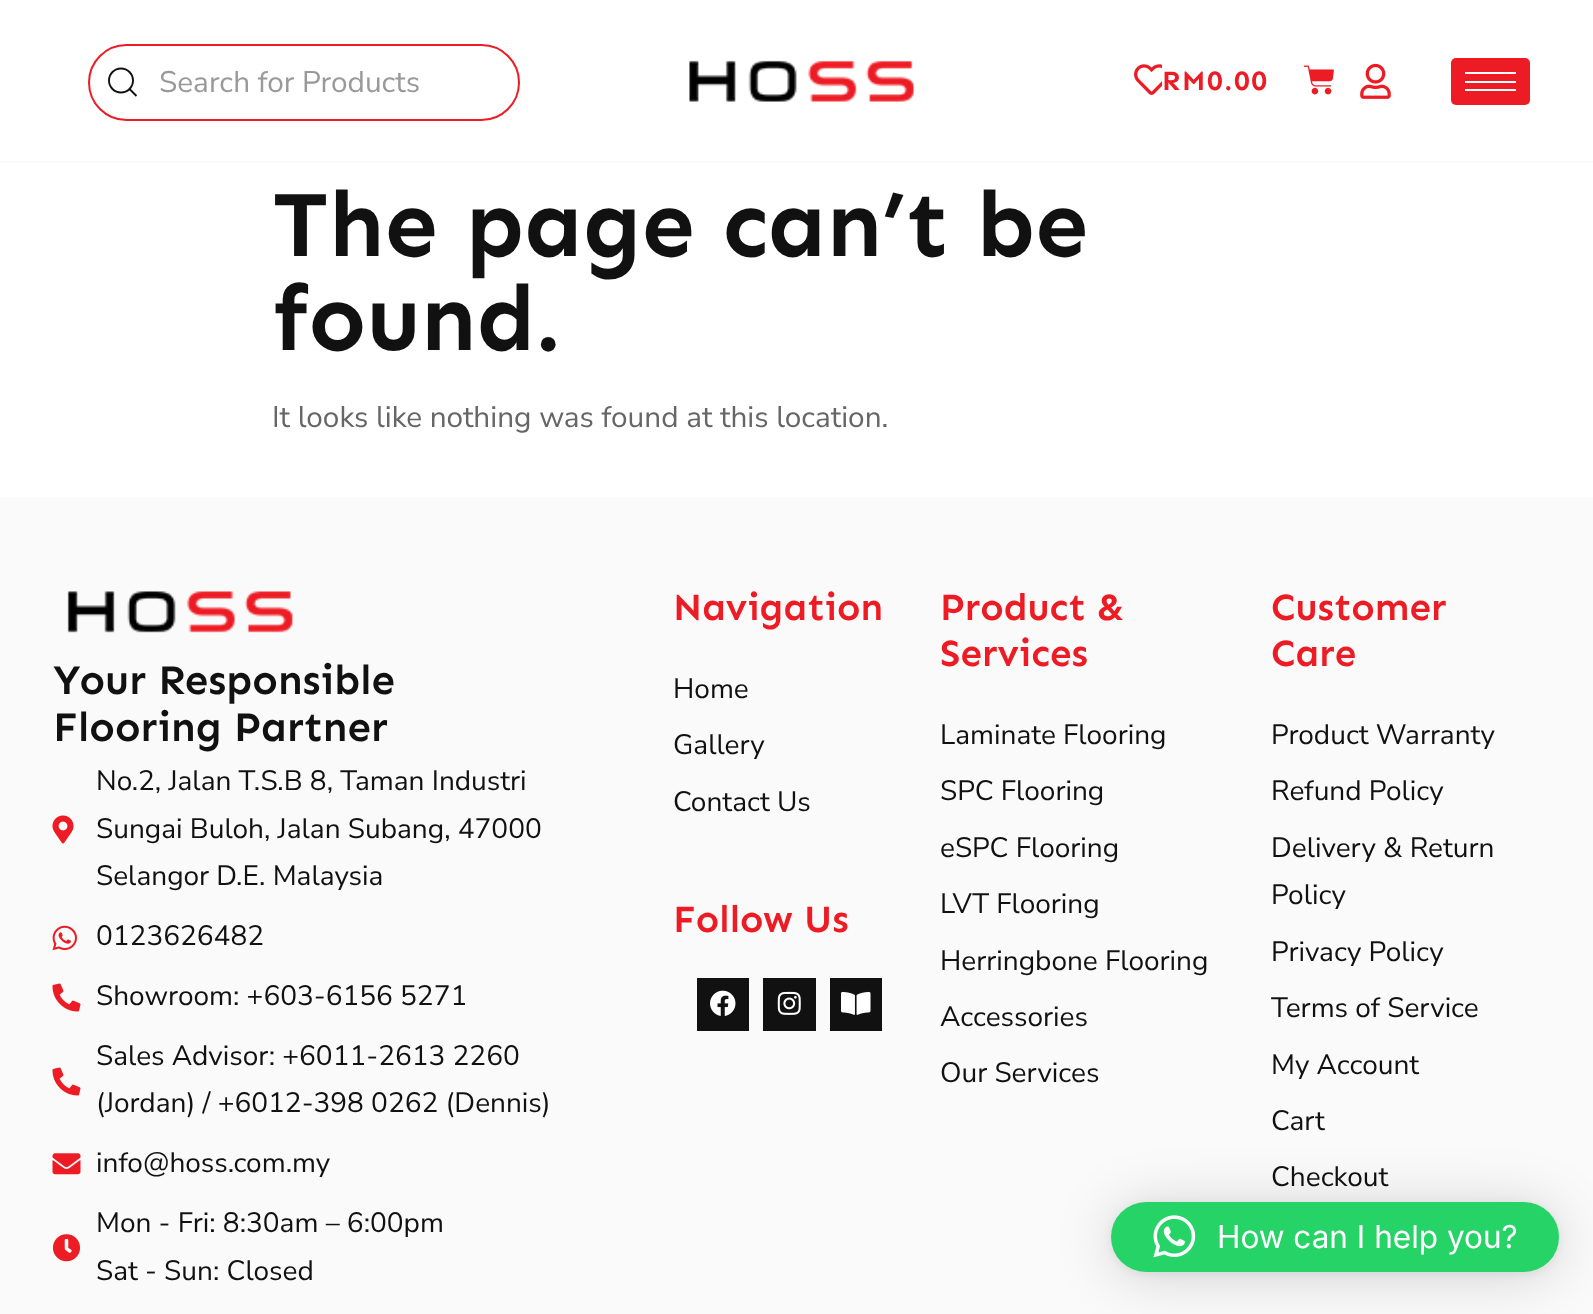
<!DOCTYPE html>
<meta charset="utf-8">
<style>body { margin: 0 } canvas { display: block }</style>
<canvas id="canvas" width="1593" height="1314"></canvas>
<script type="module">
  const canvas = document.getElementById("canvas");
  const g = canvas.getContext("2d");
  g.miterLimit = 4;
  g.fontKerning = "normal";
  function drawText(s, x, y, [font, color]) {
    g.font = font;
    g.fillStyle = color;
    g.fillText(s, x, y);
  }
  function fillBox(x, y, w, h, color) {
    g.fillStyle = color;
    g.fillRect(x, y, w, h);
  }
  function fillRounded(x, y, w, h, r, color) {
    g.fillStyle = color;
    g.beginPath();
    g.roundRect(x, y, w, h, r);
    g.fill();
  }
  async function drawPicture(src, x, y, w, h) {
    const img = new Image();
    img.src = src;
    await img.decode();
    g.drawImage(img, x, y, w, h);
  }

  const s1 = ["29.75px Nunito Sans", "#999999"];
  const s2 = ["bold 28px Sen", "#ED1C24"];
  const s3 = ["bold 94.5px Sen", "#111111"];
  const s4 = ["29.75px Nunito Sans", "#666666"];
  const s5 = ["600 42px Sen", "#111111"];
  const s6 = ["28px Nunito Sans", "#111111"];
  const s7 = ["600 38.5px Sen", "#ED1C24"];
  const s8 = ["31.5px Inter", "#FFFFFF"];

  fillBox(0, 0, 1593, 1314, "#FFFFFF");
  fillBox(0, 161, 1593, 2, "#FAFAFA");
  g.beginPath();
  g.roundRect(89, 45, 430, 75, 37.5);
  g.strokeStyle = "#ED1C24";
  g.lineWidth = 2;
  g.stroke();
  g.beginPath();
  g.arc(121, 80.5, 12, 0, Math.PI * 2);
  g.strokeStyle = "#111111";
  g.lineWidth = 1.9;
  g.stroke();
  g.beginPath();
  g.moveTo(129.5, 89);
  g.lineTo(136.5, 96);
  g.closePath();
  g.stroke();
  drawText("Search for Products", 159, 92, s1);
  await drawPicture("pic1.png", 689, 60, 225, 42);
  await drawPicture("pic2.png", 1134, 64, 28, 31);
  g.letterSpacing = "1.75px";
  drawText("RM0.00", 1162, 90, s2);
  await drawPicture("pic3.png", 1303, 65, 31, 30);
  await drawPicture("pic4.png", 1360, 63, 31, 36);
  fillRounded(1451, 58, 79, 47, 5, "#ED1C24");
  fillBox(1465, 72, 51, 2, "#FFFFFF");
  fillBox(1465, 81, 51, 2, "#FFFFFF");
  fillBox(1465, 89, 51, 2, "#FFFFFF");
  g.letterSpacing = "0px";
  drawText("The page can’t be", 272, 256, s3);
  drawText("found.", 272, 350, s3);
  drawText("It looks like nothing was found at this location.", 272, 427, s4);
  fillBox(0, 497, 1593, 817, "#FAFAFA");
  await drawPicture("pic5.png", 67, 591, 226, 42);
  drawText("Your Responsible", 53, 694, s5);
  drawText("Flooring Partner", 53, 741, s5);
  await drawPicture("pic6.png", 52, 815, 22, 29);
  drawText("No.2, Jalan T.S.B 8, Taman Industri", 96, 790, s6);
  drawText("Sungai Buloh, Jalan Subang, 47000", 96, 838, s6);
  drawText("Selangor D.E. Malaysia", 96, 885, s6);
  await drawPicture("pic7.png", 52, 925, 25, 26);
  drawText("0123626482", 96, 945, s6);
  await drawPicture("pic8.png", 52, 983, 29, 29);
  drawText("Showroom: +603-6156 5271", 96, 1005, s6);
  await drawPicture("pic8.png", 52, 1067, 29, 29);
  drawText("Sales Advisor: +6011-2613 2260", 96, 1065, s6);
  drawText("(Jordan) / +6012-398 0262 (Dennis)", 96, 1112, s6);
  await drawPicture("pic9.png", 52, 1153, 29, 22);
  drawText("info@hoss.com.my", 96, 1172, s6);
  await drawPicture("pic10.png", 52, 1234, 29, 28);
  drawText("Mon - Fri: 8:30am – 6:00pm", 96, 1232, s6);
  drawText("Sat - Sun: Closed", 96, 1280, s6);
  drawText("Navigation", 673, 620, s7);
  drawText("Home", 673, 698, s6);
  drawText("Gallery", 673, 754, s6);
  drawText("Contact Us", 673, 811, s6);
  drawText("Follow Us", 673, 932, s7);
  fillBox(697, 978, 52, 53, "#111111");
  await drawPicture("pic11.png", 710, 990, 26, 26);
  fillBox(763, 978, 53, 53, "#111111");
  await drawPicture("pic12.png", 777, 991, 24, 24);
  fillBox(830, 978, 52, 53, "#111111");
  await drawPicture("pic13.png", 841, 991, 30, 24);
  drawText("Product &", 940, 620, s7);
  drawText("Services", 940, 666, s7);
  drawText("Laminate Flooring", 940, 744, s6);
  drawText("SPC Flooring", 940, 800, s6);
  drawText("eSPC Flooring", 940, 857, s6);
  drawText("LVT Flooring", 940, 913, s6);
  drawText("Herringbone Flooring", 940, 970, s6);
  drawText("Accessories", 940, 1026, s6);
  drawText("Our Services", 940, 1082, s6);
  drawText("Customer", 1271, 620, s7);
  drawText("Care", 1271, 666, s7);
  drawText("Product Warranty", 1271, 744, s6);
  drawText("Refund Policy", 1271, 800, s6);
  drawText("Delivery & Return", 1271, 857, s6);
  drawText("Policy", 1271, 904, s6);
  drawText("Privacy Policy", 1271, 961, s6);
  drawText("Terms of Service", 1271, 1017, s6);
  drawText("My Account", 1271, 1074, s6);
  drawText("Cart", 1271, 1130, s6);
  drawText("Checkout", 1271, 1186, s6);
  g.fillStyle = "rgba(0, 0, 0, 0.16)";
  g.filter = "blur(28px)";
  g.beginPath();
  g.roundRect(1111, 1206, 448, 70, 35);
  g.fill();
  g.filter = "none";
  g.fillStyle = "rgba(0, 0, 0, 0.06)";
  g.filter = "blur(5px)";
  g.beginPath();
  g.roundRect(1111, 1204, 448, 70, 35);
  g.fill();
  g.filter = "none";
  fillRounded(1111, 1202, 448, 70, 35, "#25D366");
  await drawPicture("pic14.png", 1153, 1215, 43, 43);
  drawText("How can I help you?", 1217, 1248, s8);
</script>
